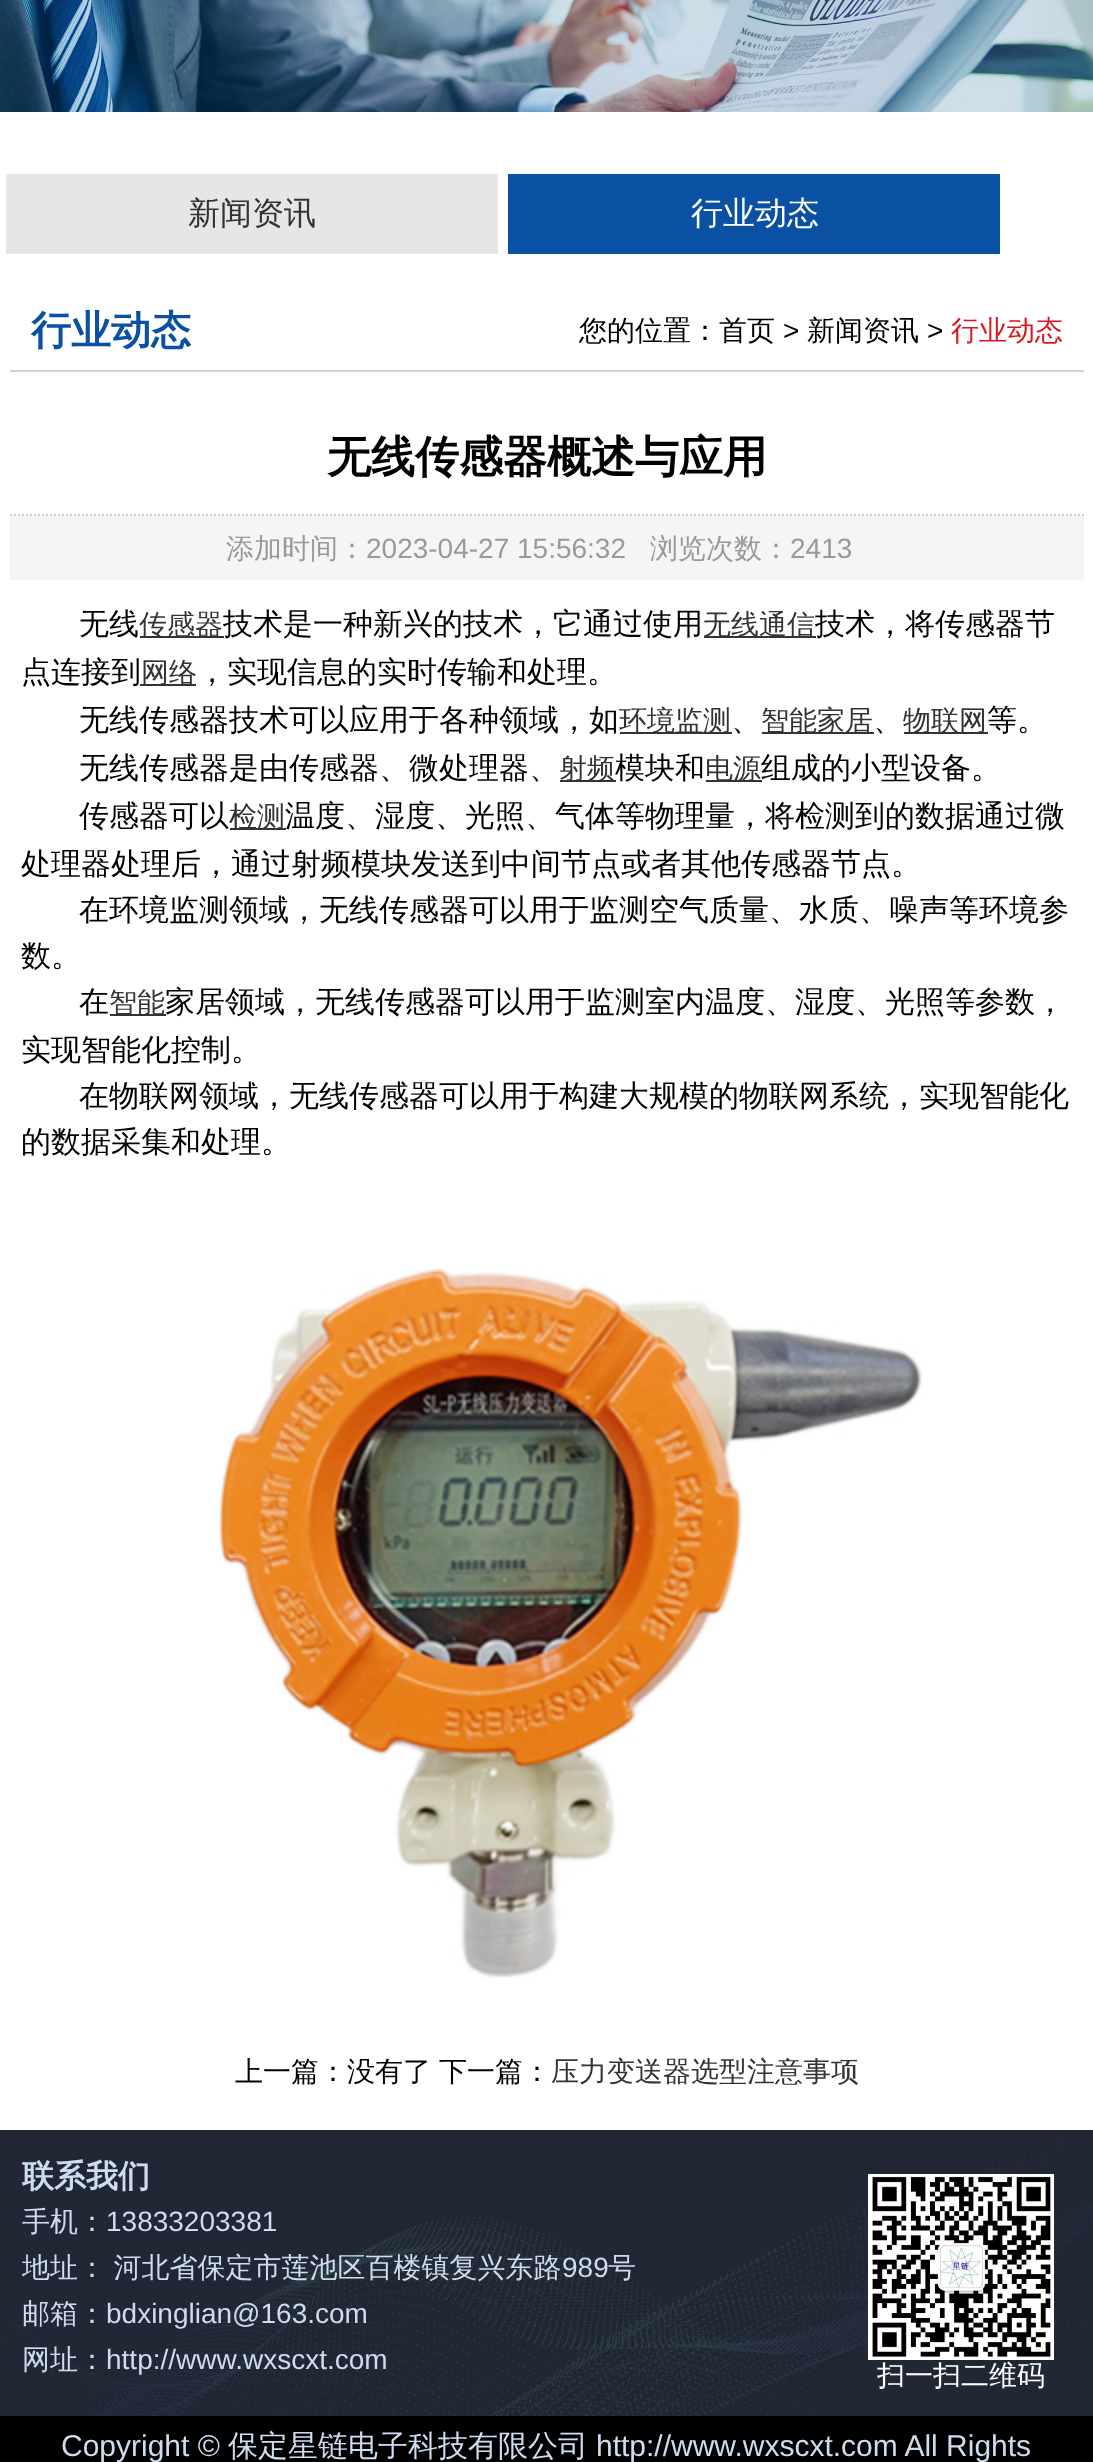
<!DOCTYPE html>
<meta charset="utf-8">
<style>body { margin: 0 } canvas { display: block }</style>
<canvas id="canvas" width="1093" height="2462"></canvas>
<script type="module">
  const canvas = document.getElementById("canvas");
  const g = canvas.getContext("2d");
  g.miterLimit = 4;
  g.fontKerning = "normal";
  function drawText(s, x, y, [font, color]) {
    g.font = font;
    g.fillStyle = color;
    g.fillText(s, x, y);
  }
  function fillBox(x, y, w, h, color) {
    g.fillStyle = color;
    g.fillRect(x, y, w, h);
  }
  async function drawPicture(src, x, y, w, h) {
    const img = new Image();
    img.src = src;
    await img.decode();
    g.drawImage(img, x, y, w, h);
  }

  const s1 = ["500 32px WenQuanYi Zen Hei", "#333333"];
  const s2 = ["500 32px WenQuanYi Zen Hei", "#FFFFFF"];
  const s3 = ["bold 40px WenQuanYi Zen Hei", "#0A51A3"];
  const s4 = ["500 28px WenQuanYi Zen Hei", "#000000"];
  const s5 = ["28px Liberation Sans", "#000000"];
  const s6 = ["500 28px WenQuanYi Zen Hei", "#D71820"];
  const s7 = ["bold 44px WenQuanYi Zen Hei", "#000000"];
  const s8 = ["500 28px WenQuanYi Zen Hei", "#999999"];
  const s9 = ["28px Liberation Sans", "#999999"];
  const s10 = ["500 30px WenQuanYi Zen Hei", "#000000"];
  const s11 = ["500 28px WenQuanYi Zen Hei", "#333333"];
  const s12 = ["bold 32px WenQuanYi Zen Hei", "#CDDCEF"];
  const s13 = ["500 28px WenQuanYi Zen Hei", "#CDDCEF"];
  const s14 = ["28px Liberation Sans", "#CDDCEF"];
  const s15 = ["500 28px WenQuanYi Zen Hei", "#FFFFFF"];
  const s16 = ["30px Liberation Sans", "#CDDCEF"];
  const s17 = ["500 30px WenQuanYi Zen Hei", "#CDDCEF"];

  fillBox(0, 0, 1093, 2462, "#FFFFFF");
  await drawPicture("pic1.png", 0, 0, 1093, 112);
  fillBox(6, 174, 492, 80, "#E6E6E6");
  drawText("新闻资讯", 188, 224, s1);
  fillBox(508, 174, 492, 80, "#0A51A3");
  drawText("行业动态", 691, 224, s2);
  fillBox(10, 370, 1074, 2, "#D1D1D1");
  drawText("行业动态", 31, 344, s3);
  drawText("您的位置：首页", 579, 340, s4);
  drawText(">", 783, 340, s5);
  drawText("新闻资讯", 807, 340, s4);
  drawText(">", 927, 340, s5);
  drawText("行业动态", 951, 340, s6);
  g.beginPath();
  g.moveTo(10, 515);
  g.lineTo(1084, 515);
  g.strokeStyle = "#CCCCCC";
  g.lineWidth = 2;
  g.setLineDash([2, 2]);
  g.stroke();
  drawText("无线传感器概述与应用", 327, 472, s7);
  fillBox(10, 516, 1074, 64, "#F5F5F5");
  drawText("添加时间：", 226, 558, s8);
  drawText("2023-04-27 15:56:32", 366, 558, s9);
  drawText("浏览次数：", 650, 558, s8);
  drawText("2413", 790, 558, s9);
  drawText("无线", 79, 634, s10);
  fillBox(140, 636, 84, 2, "#333333");
  drawText("传感器", 139, 634, s11);
  drawText("技术是一种新兴的技术，它通过使用", 223, 634, s10);
  fillBox(704, 636, 112, 2, "#333333");
  drawText("无线通信", 703, 634, s11);
  drawText("技术，将传感器节", 815, 634, s10);
  drawText("点连接到", 21, 682, s10);
  fillBox(140, 684, 56, 2, "#333333");
  drawText("网络", 141, 682, s11);
  drawText("，实现信息的实时传输和处理。", 197, 682, s10);
  drawText("无线传感器技术可以应用于各种领域，如", 79, 730, s10);
  fillBox(620, 732, 112, 2, "#333333");
  drawText("环境监测", 619, 730, s11);
  drawText("、", 731, 730, s10);
  fillBox(762, 732, 112, 2, "#333333");
  drawText("智能家居", 761, 730, s11);
  drawText("、", 873, 730, s10);
  fillBox(904, 732, 84, 2, "#333333");
  drawText("物联网", 903, 730, s11);
  drawText("等。", 987, 730, s10);
  drawText("无线传感器是由传感器、微处理器、", 79, 778, s10);
  fillBox(560, 780, 56, 2, "#333333");
  drawText("射频", 559, 778, s11);
  drawText("模块和", 615, 778, s10);
  fillBox(706, 780, 56, 2, "#333333");
  drawText("电源", 705, 778, s11);
  drawText("组成的小型设备。", 761, 778, s10);
  drawText("传感器可以", 79, 826, s10);
  fillBox(230, 828, 56, 2, "#333333");
  drawText("检测", 229, 826, s11);
  drawText("温度、湿度、光照、气体等物理量，将检测到的数据通过微", 285, 826, s10);
  drawText("处理器处理后，通过射频模块发送到中间节点或者其他传感器节点。", 21, 874, s10);
  drawText("在环境监测领域，无线传感器可以用于监测空气质量、水质、噪声等环境参", 79, 920, s10);
  drawText("数。", 21, 966, s10);
  drawText("在", 79, 1012, s10);
  fillBox(110, 1014, 56, 2, "#333333");
  drawText("智能", 109, 1012, s11);
  drawText("家居领域，无线传感器可以用于监测室内温度、湿度、光照等参数，", 165, 1012, s10);
  drawText("实现智能化控制。", 21, 1060, s10);
  drawText("在物联网领域，无线传感器可以用于构建大规模的物联网系统，实现智能化", 79, 1106, s10);
  drawText("的数据采集和处理。", 21, 1152, s10);
  await drawPicture("pic2.png", 219, 1268, 704, 710);
  drawText("上一篇：没有了", 235, 2081, s4);
  drawText("下一篇：", 439, 2081, s4);
  drawText("压力变送器选型注意事项", 551, 2081, s11);
  await drawPicture("pic3.png", 0, 2130, 1093, 286);
  drawText("联系我们", 22, 2187, s12);
  drawText("手机：", 22, 2231, s13);
  drawText("13833203381", 106, 2231, s14);
  g.wordSpacing = "-1px";
  drawText("地址： 河北省保定市莲池区百楼镇复兴东路", 22, 2277, s13);
  g.wordSpacing = "0px";
  drawText("989", 562, 2277, s14);
  drawText("号", 608, 2277, s13);
  drawText("邮箱：", 22, 2323, s13);
  drawText("bdxinglian@163.com", 106, 2323, s14);
  drawText("网址：", 22, 2369, s13);
  drawText("http://www.wxscxt.com", 106, 2369, s14);
  await drawPicture("pic4.png", 868, 2174, 186, 186);
  drawText("扫一扫二维码", 877, 2385, s15);
  fillBox(0, 2416, 1093, 46, "#000000");
  drawText("Copyright ©", 61, 2456, s16);
  drawText("保定星链电子科技有限公司", 228, 2456, s17);
  drawText("http://www.wxscxt.com All Rights", 596, 2456, s16);
</script>
